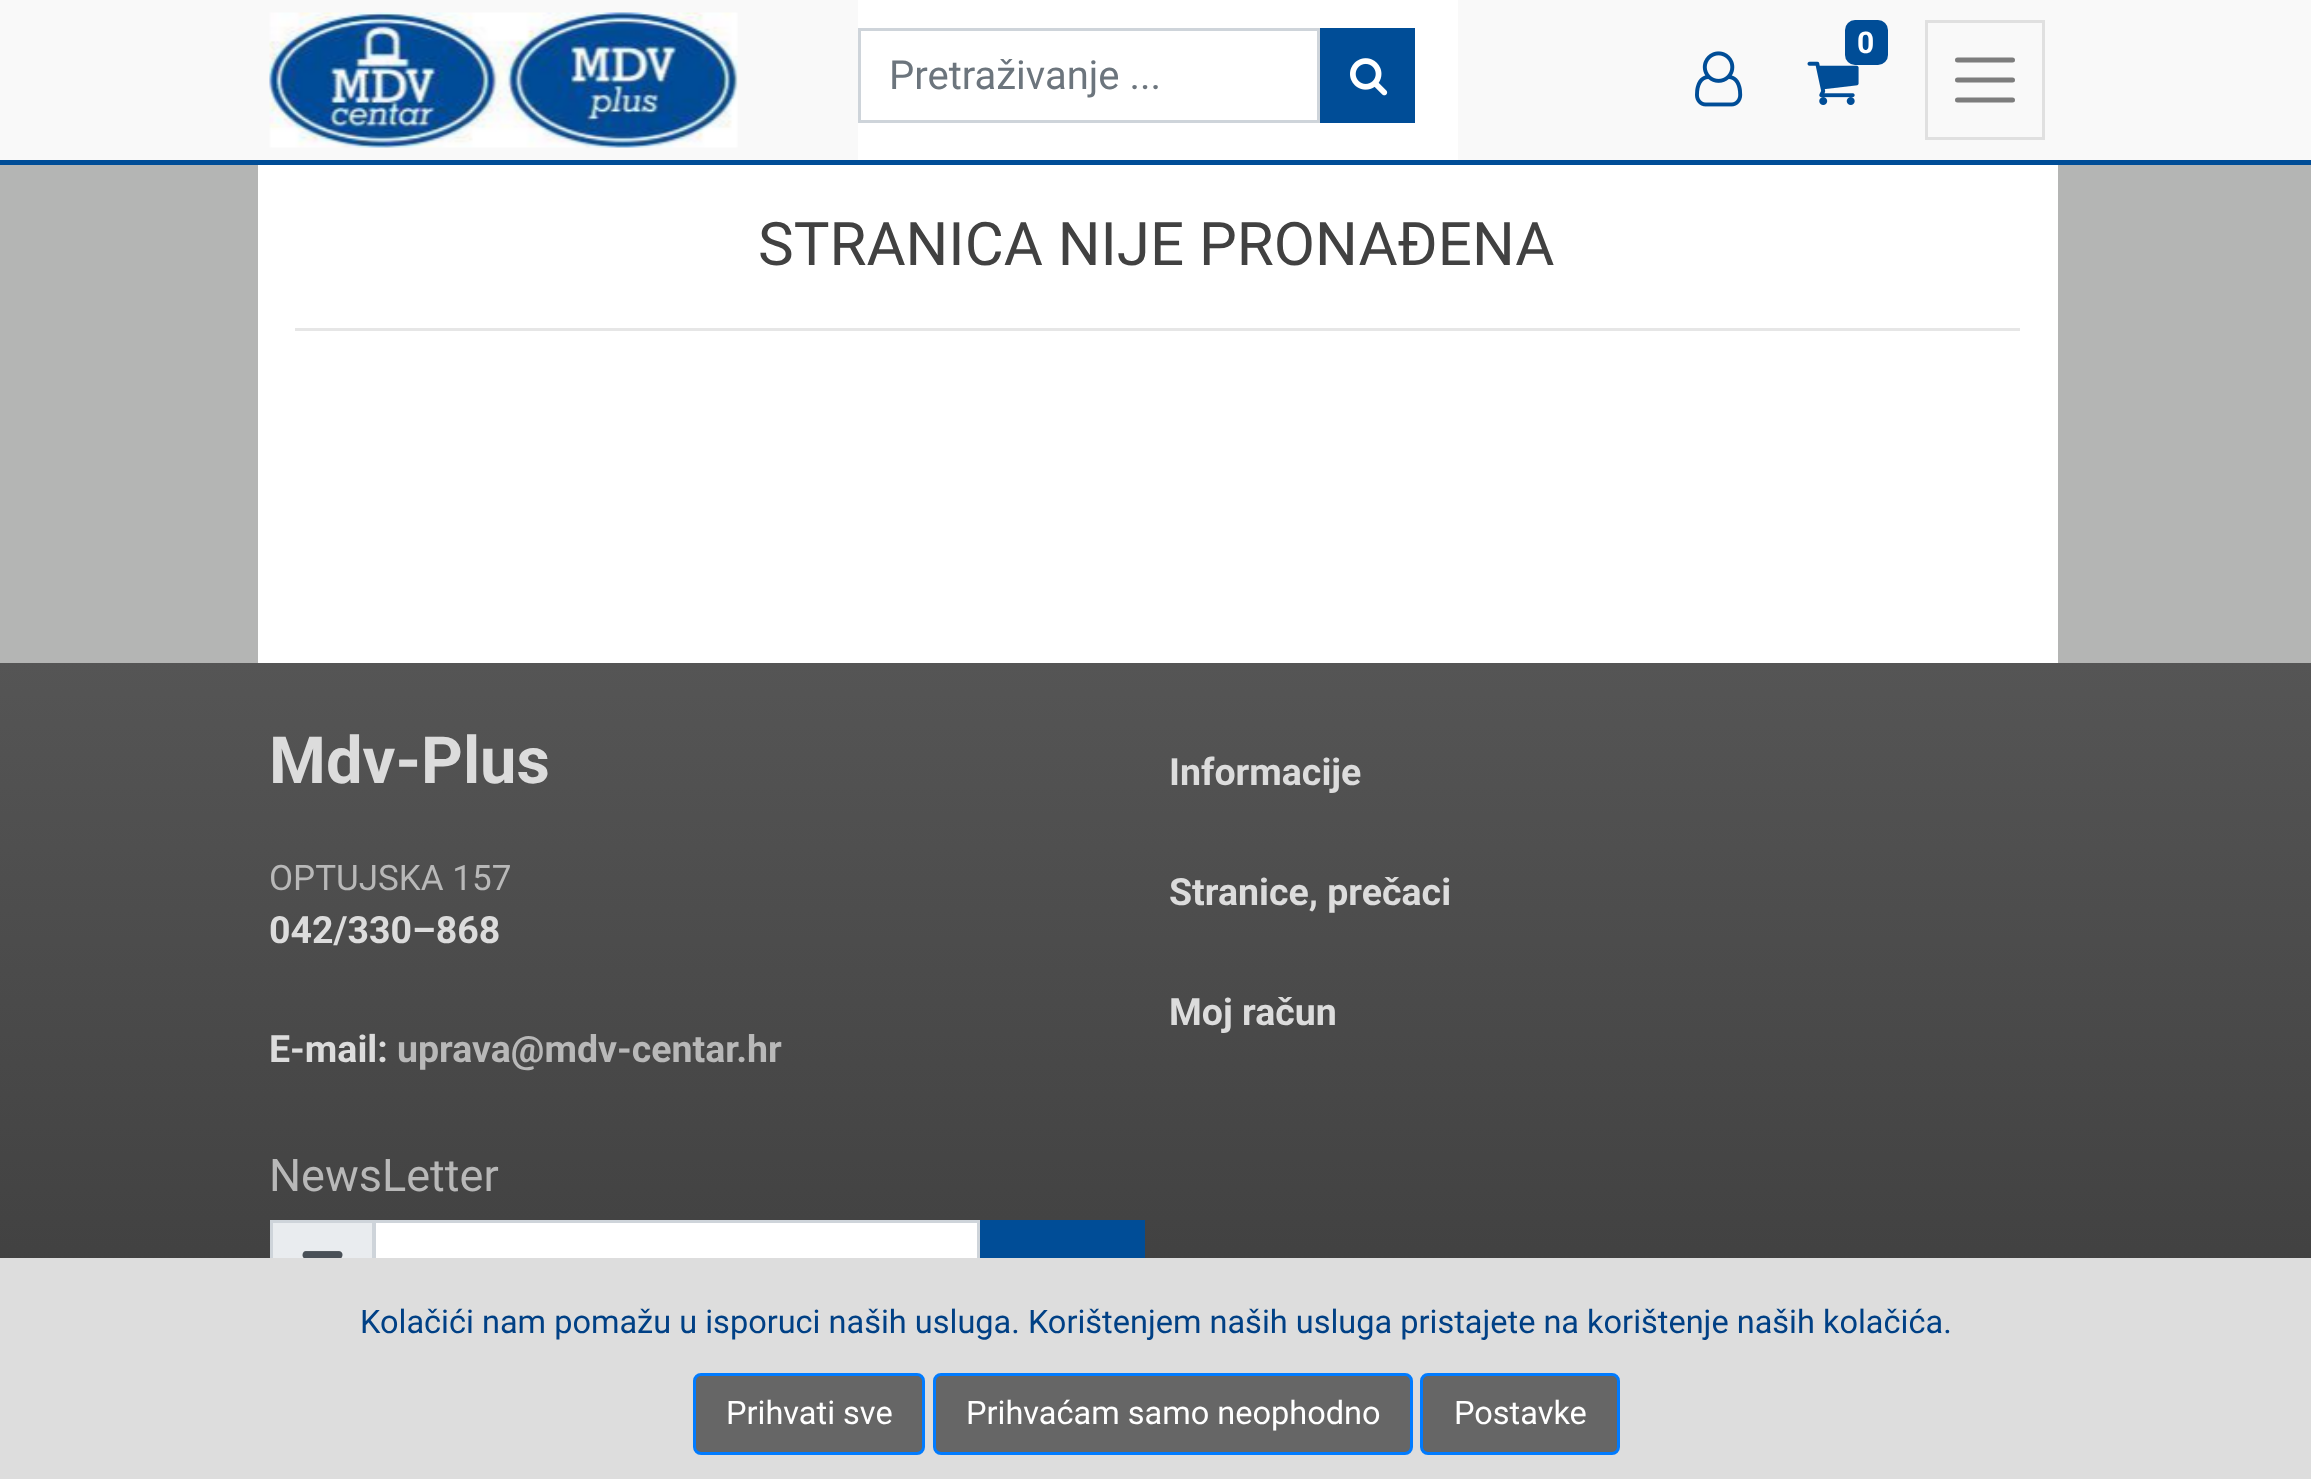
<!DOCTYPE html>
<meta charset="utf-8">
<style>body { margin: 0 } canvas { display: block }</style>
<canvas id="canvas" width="2311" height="1479"></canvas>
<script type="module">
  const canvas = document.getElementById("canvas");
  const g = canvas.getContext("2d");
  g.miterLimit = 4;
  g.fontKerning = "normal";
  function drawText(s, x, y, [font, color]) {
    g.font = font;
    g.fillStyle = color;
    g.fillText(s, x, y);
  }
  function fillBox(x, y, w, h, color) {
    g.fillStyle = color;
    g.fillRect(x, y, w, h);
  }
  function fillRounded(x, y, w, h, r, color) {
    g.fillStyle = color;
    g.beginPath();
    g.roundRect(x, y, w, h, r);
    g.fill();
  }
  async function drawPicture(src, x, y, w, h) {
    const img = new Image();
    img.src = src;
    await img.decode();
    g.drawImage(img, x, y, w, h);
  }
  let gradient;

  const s1 = ["bold 30px Roboto", "#FFFFFF"];
  const s2 = ["40px Roboto", "#6C757D"];
  const s3 = ["60px Roboto", "#414141"];
  const s4 = ["bold 65px Roboto", "#DCDCDC"];
  const s5 = ["35px Roboto", "#B8B8B8"];
  const s6 = ["bold 37.5px Roboto", "#DCDCDC"];
  const s7 = ["bold 37.5px Roboto", "#B8B8B8"];
  const s8 = ["45px Roboto", "#B8B8B8"];
  const s9 = ["32.5px Roboto", "#004085"];
  const s10 = ["32.5px Roboto", "#FFFFFF"];

  fillBox(0, 0, 2311, 1479, "#B4B5B4");
  fillBox(0, 0, 2311, 160, "#F9F9F9");
  fillBox(0, 160, 2311, 5, "#004D97");
  await drawPicture("pic1.png", 269, 12, 469, 136);
  fillRounded(1845, 20, 43, 45, 10, "#004D97");
  drawText("0", 1857, 53, s1);
  await drawPicture("pic2.png", 1807, 61, 52, 44);
  g.strokeStyle = "#E0E0E0";
  g.lineWidth = 3;
  g.strokeRect(1926.5, 21.5, 117, 117);
  g.beginPath();
  g.moveTo(1957.5, 60);
  g.lineTo(2012.5, 60);
  g.moveTo(1957.5, 80);
  g.lineTo(2012.5, 80);
  g.moveTo(1957.5, 100);
  g.lineTo(2012.5, 100);
  g.strokeStyle = "#7D7D7D";
  g.lineWidth = 5;
  g.lineCap = "round";
  g.stroke();
  await drawPicture("pic3.png", 1695, 51, 48, 56);
  fillBox(858, 0, 600, 160, "#FFFFFF");
  g.strokeStyle = "#CED4DA";
  g.lineWidth = 3;
  g.strokeRect(859.5, 29.5, 459, 92);
  drawText("Pretraživanje ...", 889, 89, s2);
  fillBox(1320, 28, 95, 95, "#004D97");
  await drawPicture("pic4.png", 1350, 58, 38, 38);
  fillBox(258, 165, 1800, 498, "#FFFFFF");
  fillBox(295, 328, 1725, 3, "#E6E6E6");
  drawText("STRANICA NIJE PRONAĐENA", 758, 265, s3);
  gradient = g.createLinearGradient(1156, 662, 1156, 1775);
  gradient.addColorStop(0, "#555555");
  gradient.addColorStop(1, "#313131");
  g.fillStyle = gradient;
  g.fillRect(0, 663, 2311, 595);
  drawText("Mdv-Plus", 269, 783, s4);
  drawText("OPTUJSKA 157", 269, 890, s5);
  drawText("042/330–868", 269, 943, s6);
  drawText("E-mail:", 269, 1062, s6);
  drawText("uprava@mdv-centar.hr", 397, 1062, s7);
  drawText("NewsLetter", 269, 1191, s8);
  fillBox(273, 1223, 99, 35, "#E9ECEF");
  g.strokeRect(271.5, 1221.5, 102, 87);
  await drawPicture("pic5.png", 302, 1251, 41, 7);
  fillBox(376, 1223, 601, 35, "#FFFFFF");
  g.strokeRect(374.5, 1221.5, 604, 87);
  fillBox(980, 1220, 165, 38, "#004D97");
  drawText("Informacije", 1169, 785, s6);
  drawText("Stranice, prečaci", 1169, 905, s6);
  drawText("Moj račun", 1169, 1025, s6);
  fillBox(0, 1258, 2311, 221, "#DDDDDD");
  drawText("Kolačići nam pomažu u isporuci naših usluga. Korištenjem naših usluga pristajete na korištenje naših kolačića.", 360, 1333, s9);
  g.fillStyle = "#666666";
  g.beginPath();
  g.roundRect(694.5, 1374.5, 229, 79, 6.5);
  g.fill();
  g.strokeStyle = "#007BFF";
  g.stroke();
  drawText("Prihvati sve", 726, 1424, s10);
  g.fillStyle = "#666666";
  g.beginPath();
  g.roundRect(934.5, 1374.5, 477, 79, 6.5);
  g.fill();
  g.stroke();
  drawText("Prihvaćam samo neophodno", 966, 1424, s10);
  g.fillStyle = "#666666";
  g.beginPath();
  g.roundRect(1421.5, 1374.5, 197, 79, 6.5);
  g.fill();
  g.stroke();
  drawText("Postavke", 1454, 1424, s10);
</script>
